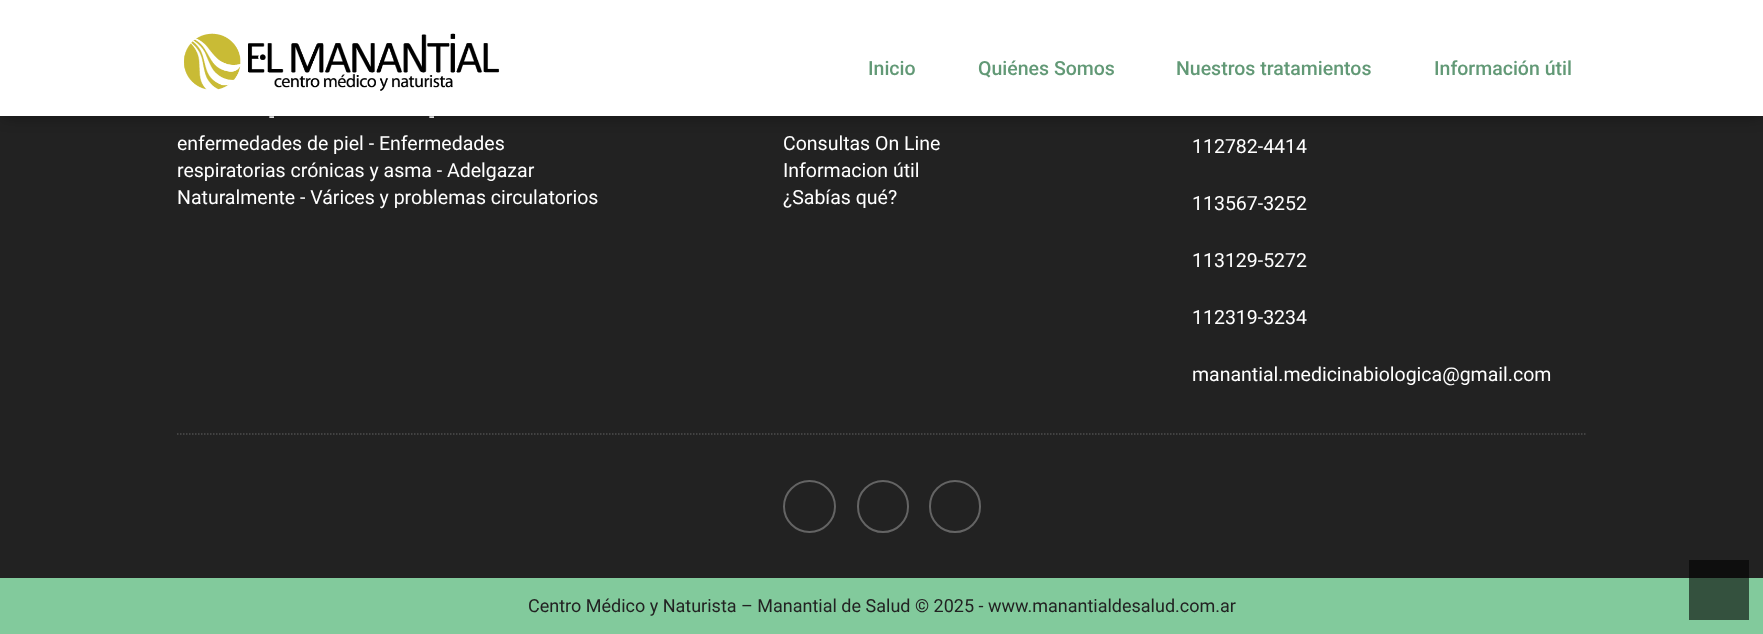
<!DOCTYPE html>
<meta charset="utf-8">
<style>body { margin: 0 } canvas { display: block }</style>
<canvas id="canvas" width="1763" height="634"></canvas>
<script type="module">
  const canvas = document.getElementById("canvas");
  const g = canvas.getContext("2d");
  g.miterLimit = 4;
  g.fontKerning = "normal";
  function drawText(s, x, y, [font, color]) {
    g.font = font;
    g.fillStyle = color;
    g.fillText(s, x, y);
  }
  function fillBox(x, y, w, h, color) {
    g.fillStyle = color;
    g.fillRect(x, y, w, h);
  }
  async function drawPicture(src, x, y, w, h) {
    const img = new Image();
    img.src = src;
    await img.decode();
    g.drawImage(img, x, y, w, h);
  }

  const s1 = ["500 19.5px Roboto", "#629976"];
  const s2 = ["19.5px Roboto", "#FFFFFF"];
  const s3 = ["18px Roboto", "#222222"];

  fillBox(0, 0, 1763, 634, "#222222");
  g.fillStyle = "rgba(0, 0, 0, 0.41)";
  g.filter = "blur(7.5px)";
  g.beginPath();
  g.rect(3, 6, 1758, 110);
  g.fill();
  g.filter = "none";
  fillBox(0, 0, 1763, 116, "#FFFFFF");
  await drawPicture("pic1.png", 184, 33, 316, 58);
  drawText("Inicio", 868, 75, s1);
  drawText("Quiénes Somos", 978, 75, s1);
  drawText("Nuestros tratamientos", 1176, 75, s1);
  drawText("Información útil", 1434, 75, s1);
  fillBox(1689, 560, 60, 18, "#0E0E0E");
  drawText("-", 269, 123, s2);
  drawText("-", 429, 123, s2);
  drawText("enfermedades de piel - Enfermedades", 177, 150, s2);
  drawText("respiratorias crónicas y asma - Adelgazar", 177, 177, s2);
  drawText("Naturalmente - Várices y problemas circulatorios", 177, 204, s2);
  drawText("Consultas On Line", 783, 150, s2);
  drawText("Informacion útil", 783, 177, s2);
  drawText("¿Sabías qué?", 783, 204, s2);
  drawText("112782-4414", 1192, 153, s2);
  drawText("113567-3252", 1192, 210, s2);
  drawText("113129-5272", 1192, 267, s2);
  drawText("112319-3234", 1192, 324, s2);
  drawText("manantial.medicinabiologica@gmail.com", 1192, 381, s2);
  g.beginPath();
  g.moveTo(177, 434);
  g.lineTo(1587, 434);
  g.strokeStyle = "#4E4E4E";
  g.lineWidth = 1.5;
  g.setLineDash([1.5, 1.5]);
  g.stroke();
  g.beginPath();
  g.arc(809.5, 506.5, 25.5, 0, Math.PI * 2);
  g.strokeStyle = "#646464";
  g.lineWidth = 2;
  g.setLineDash([]);
  g.stroke();
  g.beginPath();
  g.roundRect(858, 481, 50, 51, 25);
  g.stroke();
  g.beginPath();
  g.roundRect(930, 481, 50, 51, 25);
  g.stroke();
  fillBox(0, 578, 1763, 56, "#82CA9C");
  fillBox(1689, 578, 60, 42, "#34513E");
  drawText("Centro Médico y Naturista – Manantial de Salud © 2025 - www.manantialdesalud.com.ar", 528, 612, s3);
</script>
